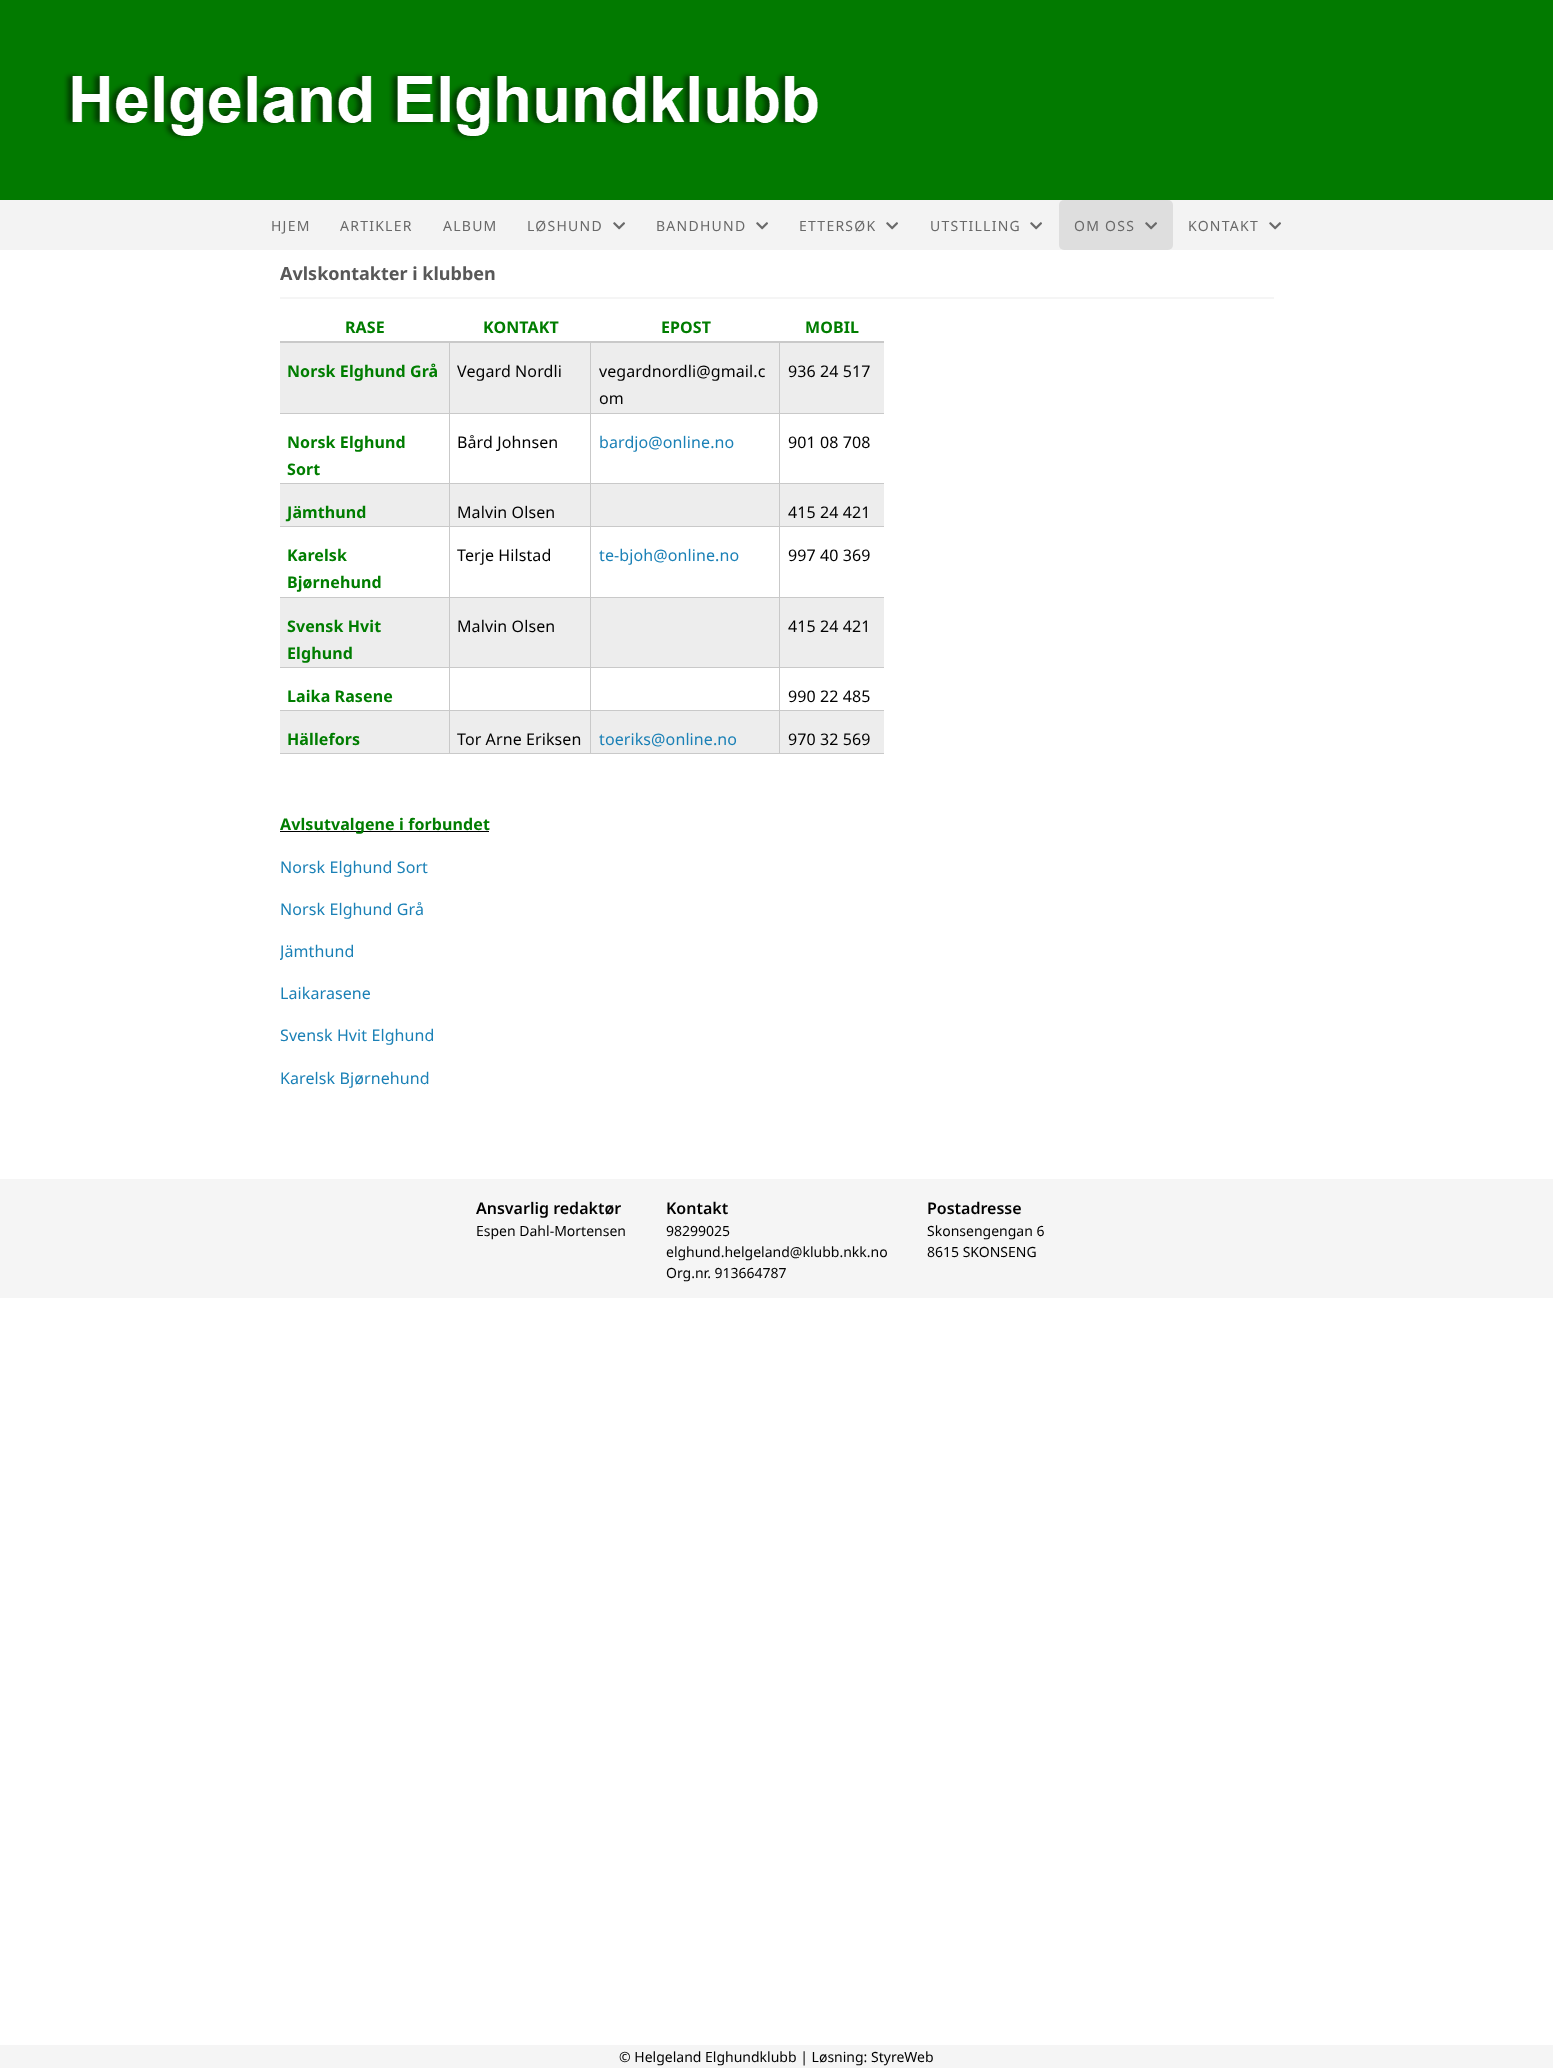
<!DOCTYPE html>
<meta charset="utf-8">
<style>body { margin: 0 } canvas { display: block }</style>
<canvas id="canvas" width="1553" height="2068"></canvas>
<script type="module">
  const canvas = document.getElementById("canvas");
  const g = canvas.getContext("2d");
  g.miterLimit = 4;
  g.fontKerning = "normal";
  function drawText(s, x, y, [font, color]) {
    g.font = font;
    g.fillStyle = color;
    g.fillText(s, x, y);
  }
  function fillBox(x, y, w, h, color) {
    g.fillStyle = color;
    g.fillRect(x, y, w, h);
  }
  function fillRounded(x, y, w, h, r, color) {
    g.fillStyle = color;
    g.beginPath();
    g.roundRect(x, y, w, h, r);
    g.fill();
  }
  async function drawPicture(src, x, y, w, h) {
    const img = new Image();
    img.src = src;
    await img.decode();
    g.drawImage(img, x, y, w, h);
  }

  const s1 = ["14px Noto Sans", "#696969"];
  const s2 = ["bold 18px Noto Sans", "#585858"];
  const s3 = ["bold 16px Noto Sans", "#007D00"];
  const s4 = ["16px Noto Sans", "#000000"];
  const s5 = ["16px Noto Sans", "#1A80B6"];
  const s6 = ["600 16px Noto Sans", "#000000"];
  const s7 = ["14px Noto Sans", "#000000"];

  fillBox(0, 0, 1553, 2068, "#FFFFFF");
  await drawPicture("pic1.png", 0, 0, 1553, 200);
  fillBox(0, 200, 1553, 50, "#F3F3F3");
  g.letterSpacing = "1.25px";
  drawText("HJEM", 271, 231, s1);
  drawText("ARTIKLER", 340, 231, s1);
  drawText("ALBUM", 443, 231, s1);
  drawText("LØSHUND", 527, 231, s1);
  await drawPicture("pic2.png", 613, 222, 12, 8);
  drawText("BANDHUND", 656, 231, s1);
  await drawPicture("pic2.png", 756, 222, 12, 8);
  drawText("ETTERSØK", 799, 231, s1);
  await drawPicture("pic2.png", 886, 222, 12, 8);
  drawText("UTSTILLING", 930, 231, s1);
  await drawPicture("pic2.png", 1030, 222, 12, 8);
  fillRounded(1059, 200, 114, 50, 5, "#DEDEDE");
  drawText("OM OSS", 1074, 231, s1);
  await drawPicture("pic3.png", 1145, 222, 12, 8);
  drawText("KONTAKT", 1188, 231, s1);
  await drawPicture("pic2.png", 1269, 222, 12, 8);
  fillBox(280, 297, 994, 2, "#F5F5F5");
  g.letterSpacing = "0px";
  drawText("Avlskontakter i klubben", 280, 280, s2);
  fillBox(280, 341, 604, 2, "#C9C9C9");
  g.letterSpacing = "0.1px";
  drawText("RASE", 345, 333, s3);
  drawText("KONTAKT", 483, 333, s3);
  drawText("EPOST", 661, 333, s3);
  drawText("MOBIL", 805, 333, s3);
  fillBox(280, 343, 169, 70, "#EDEDED");
  fillBox(449, 343, 1, 411, "#C9C9C9");
  fillBox(280, 413, 170, 1, "#C9C9C9");
  drawText("Norsk Elghund Grå", 287, 377, s3);
  fillBox(450, 343, 140, 70, "#EDEDED");
  fillBox(590, 343, 1, 411, "#C9C9C9");
  fillBox(450, 413, 141, 1, "#C9C9C9");
  drawText("Vegard Nordli", 457, 377, s4);
  fillBox(591, 343, 188, 70, "#EDEDED");
  fillBox(779, 343, 1, 411, "#C9C9C9");
  fillBox(591, 413, 293, 1, "#C9C9C9");
  drawText("vegardnordli@gmail.c", 599, 377, s4);
  drawText("om", 599, 404, s4);
  fillBox(780, 343, 104, 70, "#EDEDED");
  drawText("936 24 517", 788, 377, s4);
  fillBox(280, 483, 604, 1, "#C9C9C9");
  drawText("Norsk Elghund", 287, 448, s3);
  drawText("Sort", 287, 475, s3);
  drawText("Bård Johnsen", 457, 448, s4);
  drawText("bardjo@online.no", 599, 448, s5);
  drawText("901 08 708", 788, 448, s4);
  fillBox(280, 484, 169, 42, "#EDEDED");
  fillBox(280, 526, 604, 1, "#C9C9C9");
  drawText("Jämthund", 287, 518, s3);
  fillBox(450, 484, 140, 42, "#EDEDED");
  drawText("Malvin Olsen", 457, 518, s4);
  fillBox(591, 484, 188, 42, "#EDEDED");
  fillBox(780, 484, 104, 42, "#EDEDED");
  drawText("415 24 421", 788, 518, s4);
  fillBox(280, 597, 604, 1, "#C9C9C9");
  drawText("Karelsk", 287, 561, s3);
  drawText("Bjørnehund", 287, 588, s3);
  drawText("Terje Hilstad", 457, 561, s4);
  drawText("te-bjoh@online.no", 599, 561, s5);
  drawText("997 40 369", 788, 561, s4);
  fillBox(280, 598, 169, 69, "#EDEDED");
  fillBox(280, 667, 604, 1, "#C9C9C9");
  drawText("Svensk Hvit", 287, 632, s3);
  drawText("Elghund", 287, 659, s3);
  fillBox(450, 598, 140, 69, "#EDEDED");
  drawText("Malvin Olsen", 457, 632, s4);
  fillBox(591, 598, 188, 69, "#EDEDED");
  fillBox(780, 598, 104, 69, "#EDEDED");
  drawText("415 24 421", 788, 632, s4);
  fillBox(280, 710, 604, 1, "#C9C9C9");
  drawText("Laika Rasene", 287, 702, s3);
  drawText("990 22 485", 788, 702, s4);
  fillBox(280, 711, 169, 42, "#EDEDED");
  fillBox(280, 753, 604, 1, "#C9C9C9");
  drawText("Hällefors", 287, 745, s3);
  fillBox(450, 711, 140, 42, "#EDEDED");
  drawText("Tor Arne Eriksen", 457, 745, s4);
  fillBox(591, 711, 188, 42, "#EDEDED");
  drawText("toeriks@online.no", 599, 745, s5);
  fillBox(780, 711, 104, 42, "#EDEDED");
  drawText("970 32 569", 788, 745, s4);
  fillBox(280, 831, 209, 1, "#000000");
  drawText("Avlsutvalgene i forbundet", 280, 830, s3);
  drawText("Norsk Elghund Sort", 280, 873, s5);
  drawText("Norsk Elghund Grå", 280, 915, s5);
  g.save();
  g.beginPath();
  g.rect(280, 299, 994, 850);
  g.clip();
  drawText("Jämthund", 280, 957, s5);
  g.restore();
  drawText("Laikarasene", 280, 999, s5);
  drawText("Svensk Hvit Elghund", 280, 1041, s5);
  drawText("Karelsk Bjørnehund", 280, 1084, s5);
  fillBox(0, 1179, 1553, 119, "#F5F5F5");
  g.letterSpacing = "0px";
  drawText("Ansvarlig redaktør", 476, 1214, s6);
  drawText("Espen Dahl-Mortensen", 476, 1236, s7);
  drawText("Kontakt", 666, 1214, s6);
  drawText("98299025", 666, 1236, s7);
  drawText("elghund.helgeland@klubb.nkk.no", 666, 1257, s7);
  drawText("Org.nr. 913664787", 666, 1278, s7);
  drawText("Postadresse", 927, 1214, s6);
  drawText("Skonsengengan 6", 927, 1236, s7);
  drawText("8615 SKONSENG", 927, 1257, s7);
  fillBox(0, 2045, 1553, 23, "#F5F5F5");
  drawText("© Helgeland Elghundklubb | Løsning: StyreWeb", 619, 2062, s7);
</script>
